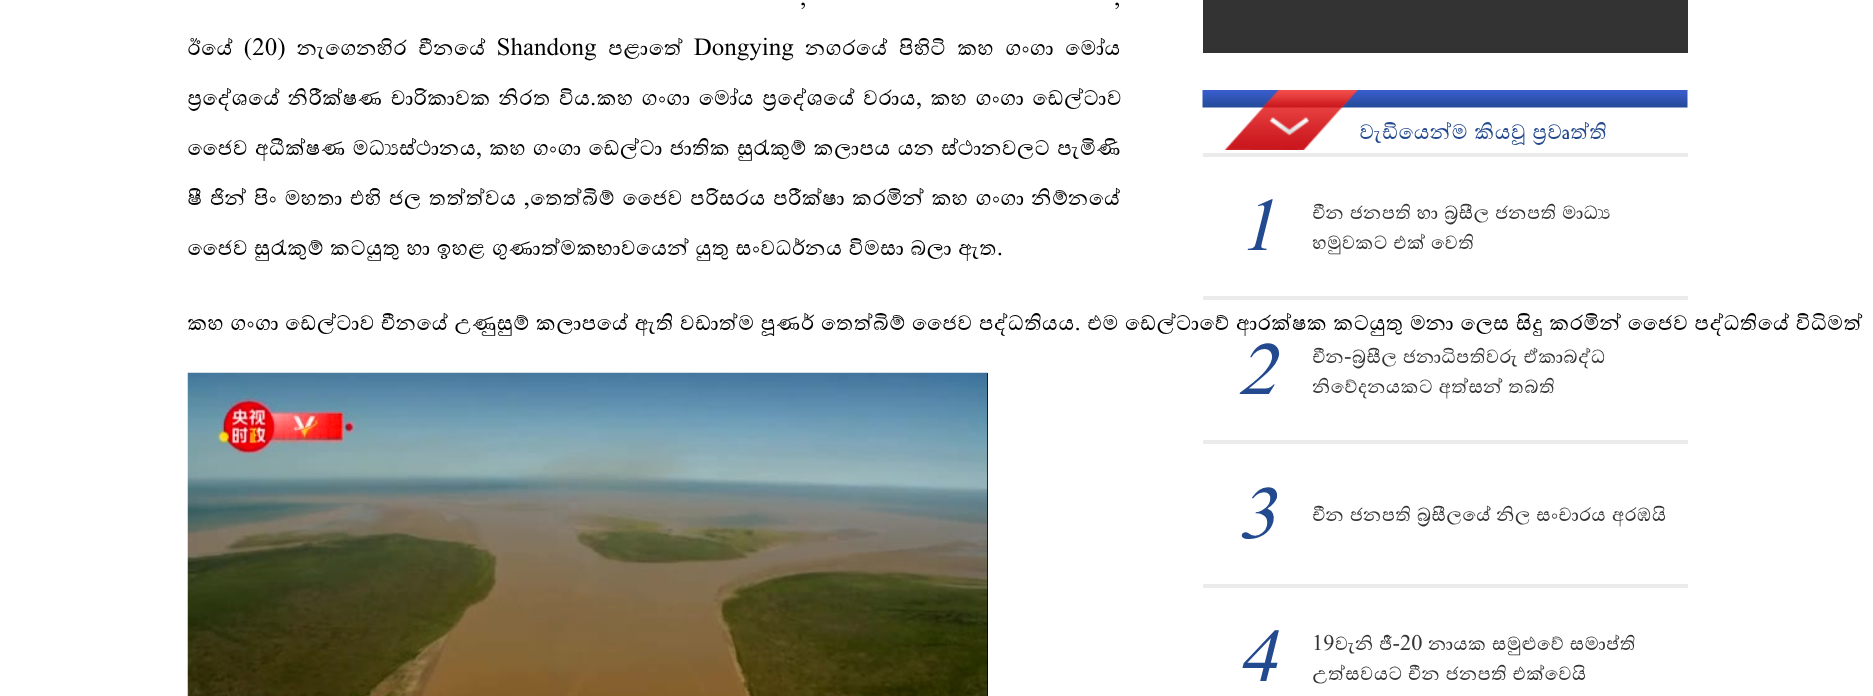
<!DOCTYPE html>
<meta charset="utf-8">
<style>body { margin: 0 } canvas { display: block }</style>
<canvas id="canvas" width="1873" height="696"></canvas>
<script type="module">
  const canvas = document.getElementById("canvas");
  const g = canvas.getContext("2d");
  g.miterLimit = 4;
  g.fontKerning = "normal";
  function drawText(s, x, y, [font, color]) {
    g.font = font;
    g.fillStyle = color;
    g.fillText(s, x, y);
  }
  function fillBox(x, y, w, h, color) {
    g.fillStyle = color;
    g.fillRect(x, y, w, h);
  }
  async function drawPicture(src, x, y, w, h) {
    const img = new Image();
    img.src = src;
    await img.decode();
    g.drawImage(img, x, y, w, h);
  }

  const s1 = ["25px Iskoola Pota", "#000000"];
  const s2 = ["25px Iskoola Pota", "#23498F"];
  const s3 = ["italic 75px Iskoola Pota", "#23498F"];
  const s4 = ["22.5px Iskoola Pota", "#333333"];

  fillBox(0, 0, 1873, 696, "#FFFFFF");
  g.wordSpacing = "3px";
  drawText(",", 800, 5, s1);
  drawText(",", 1114, 5, s1);
  g.wordSpacing = "5px";
  drawText("ඊයේ (20) නැගෙනහිර චීනයේ Shandong පළාතේ Dongying නගරයේ පිහිටි කහ ගංගා මෝය", 187, 55, s1);
  g.wordSpacing = "2px";
  drawText("ප්‍රදේශයේ නිරීක්ෂණ චාරිකාවක නිරත විය.කහ ගංගා මෝය ප්‍රදේශයේ වරාය, කහ ගංගා ඩෙල්ටාව", 187, 105, s1);
  g.wordSpacing = "0.6px";
  drawText("ජෛව අධීක්ෂණ මධ්‍යස්ථානය, කහ ගංගා ඩෙල්ටා ජාතික සුරැකුම් කලාපය යන ස්ථානවලට පැමිණි", 187, 155, s1);
  g.wordSpacing = "1.1px";
  drawText("ෂී ජින් පිං මහතා එහි ජල තත්ත්වය ,තෙත්බිම් ජෛව පරිසරය පරීක්ෂා කරමින් කහ ගංගා නිම්නයේ", 187, 205, s1);
  g.wordSpacing = "0px";
  drawText("ජෛව සුරැකුම් කටයුතු හා ඉහළ ගුණාත්මකභාවයෙන් යුතු සංවර්ධනය විමසා බලා ඇත.", 187, 255, s1);
  drawText("කහ ගංගා ඩෙල්ටාව චීනයේ උණුසුම් කලාපයේ ඇති වඩාත්ම පූර්ණ තෙත්බිම් ජෛව පද්ධතියය. එම ඩෙල්ටාවේ ආරක්ෂක කටයුතු මනා ලෙස සිදු කරමින් ජෛව පද්ධතියේ විධිමත්", 187, 330, s1);
  fillBox(987, 373, 1, 323, "#000000");
  await drawPicture("pic1.png", 187, 372, 801, 324);
  fillBox(1203, 0, 485, 53, "#333333");
  await drawPicture("pic2.png", 1202, 90, 486, 18);
  fillBox(1203, 153, 485, 4, "#EBEBEB");
  await drawPicture("pic3.png", 1224, 90, 134, 60);
  drawText("වැඩියෙන්ම කියවූ ප්‍රවෘත්ති", 1359, 139, s2);
  fillBox(1203, 296, 485, 4, "#EBEBEB");
  drawText("1", 1238, 250, s3);
  drawText("චීන ජනපති හා බ්‍රසීල ජනපති මාධ්‍ය", 1312, 219, s4);
  drawText("හමුවකට එක් වෙති", 1312, 249, s4);
  fillBox(1203, 440, 485, 4, "#EBEBEB");
  drawText("2", 1238, 394, s3);
  drawText("චීන-බ්‍රසීල ජනාධිපතිවරු ඒකාබද්ධ", 1312, 363, s4);
  g.save();
  g.beginPath();
  g.rect(1313, 325, 375, 90);
  g.clip();
  drawText("නිවේදනයකට අත්සන් තබති", 1312, 393, s4);
  g.restore();
  fillBox(1203, 584, 485, 4, "#EBEBEB");
  drawText("3", 1238, 538, s3);
  drawText("චීන ජනපති බ්‍රසීලයේ නිල සංචාරය අරඹයි", 1312, 521, s4);
  drawText("4", 1238, 681, s3);
  drawText("19වැනි ජී-20 නායක සමුළුවේ සමාප්ති", 1312, 650, s4);
  drawText("උත්සවයට චීන ජනපති එක්වෙයි", 1312, 680, s4);
</script>
